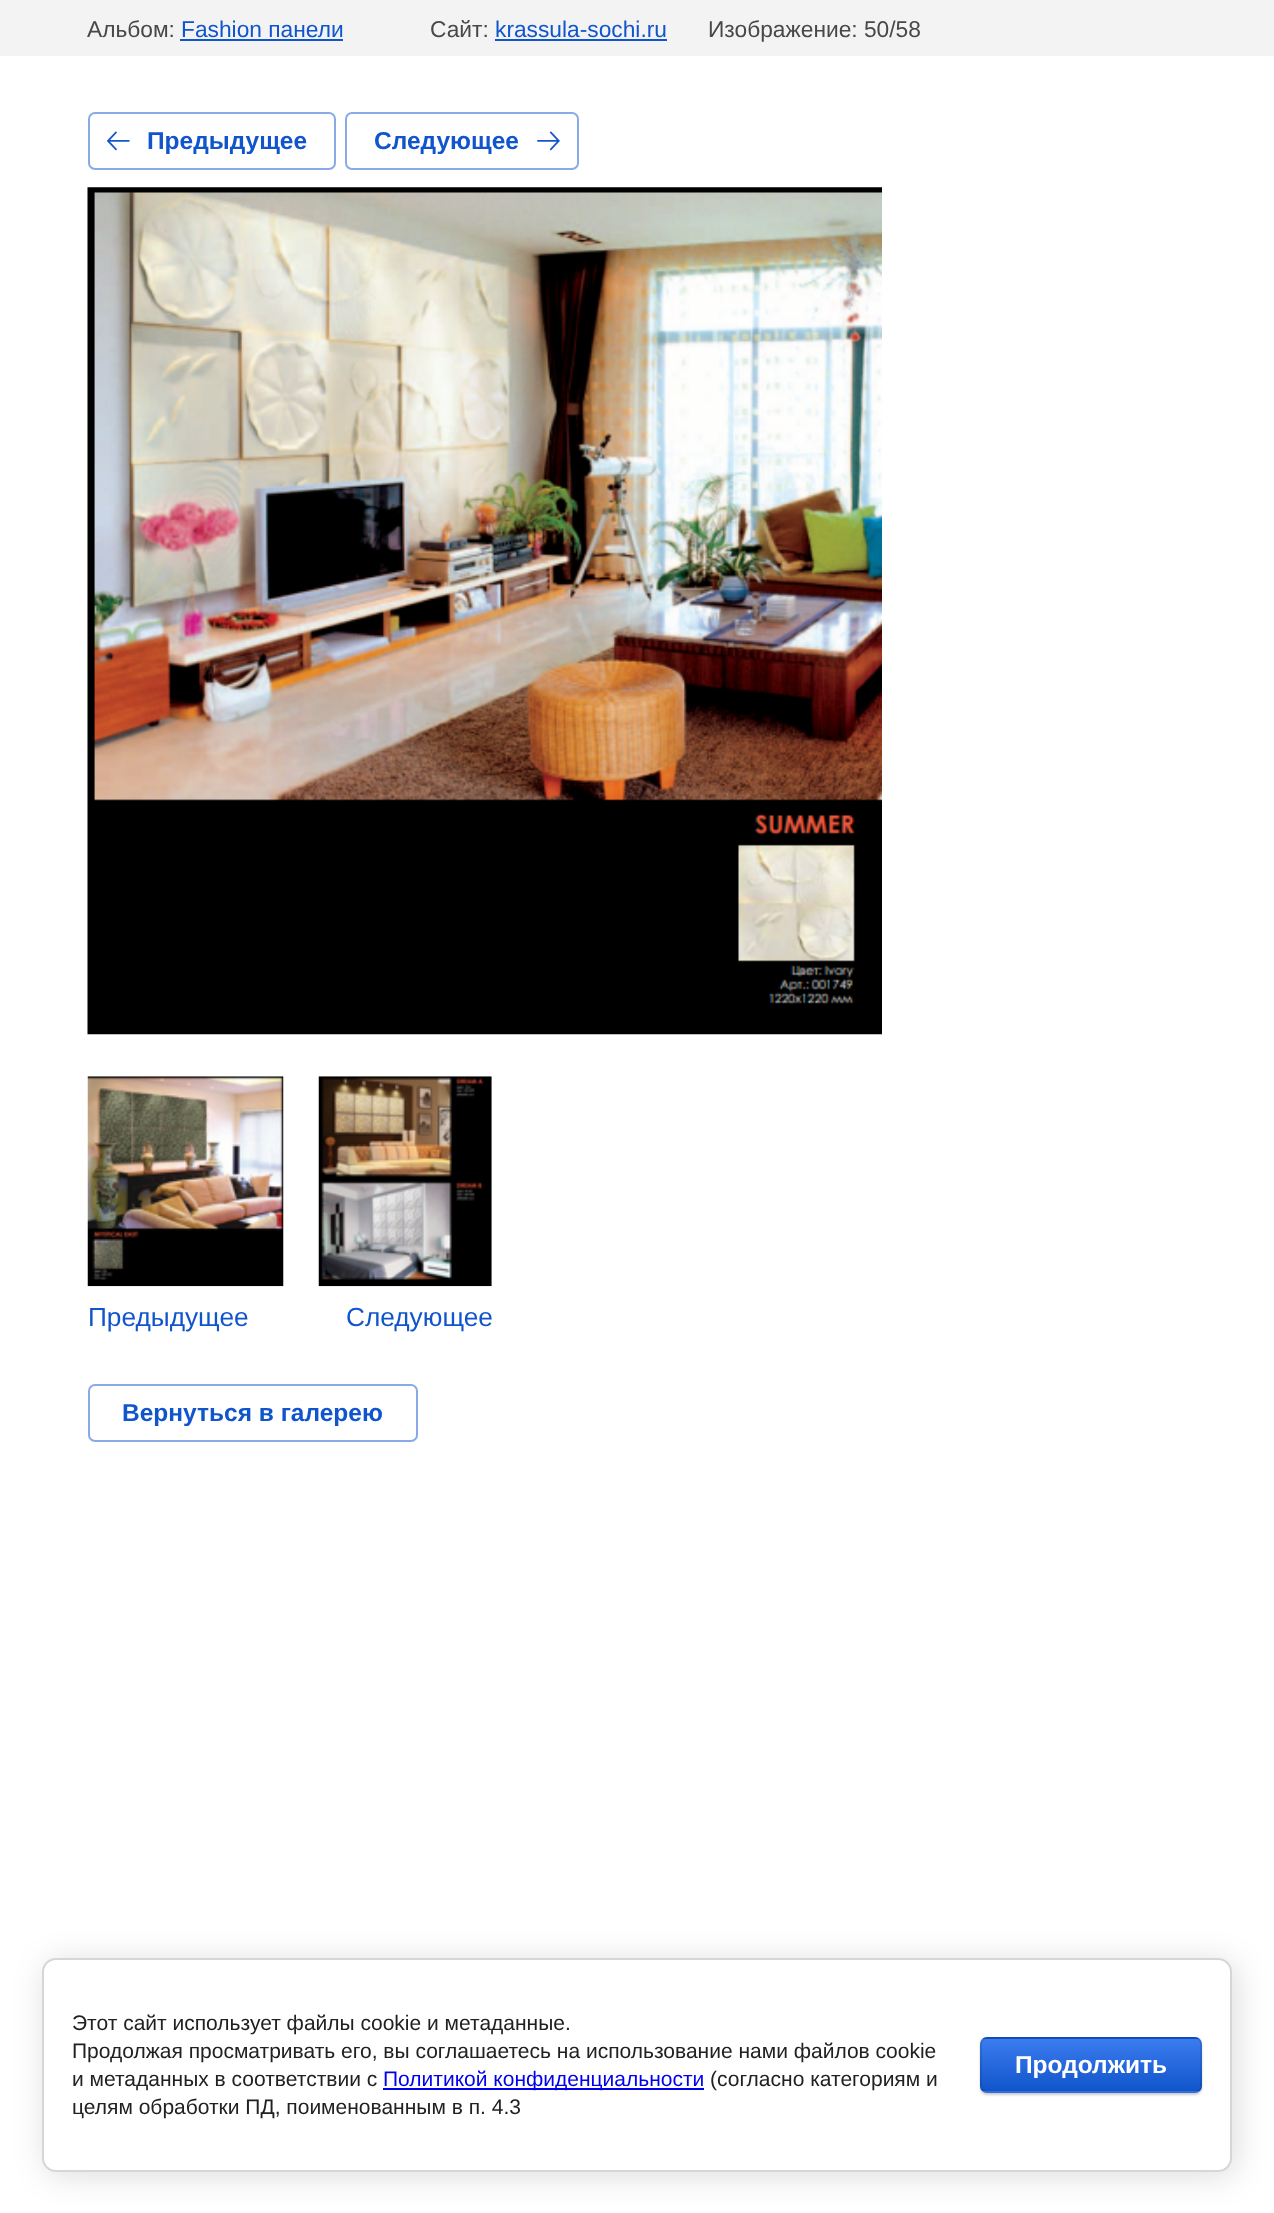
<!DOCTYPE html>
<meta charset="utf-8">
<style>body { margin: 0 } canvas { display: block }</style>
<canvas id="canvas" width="1274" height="2213"></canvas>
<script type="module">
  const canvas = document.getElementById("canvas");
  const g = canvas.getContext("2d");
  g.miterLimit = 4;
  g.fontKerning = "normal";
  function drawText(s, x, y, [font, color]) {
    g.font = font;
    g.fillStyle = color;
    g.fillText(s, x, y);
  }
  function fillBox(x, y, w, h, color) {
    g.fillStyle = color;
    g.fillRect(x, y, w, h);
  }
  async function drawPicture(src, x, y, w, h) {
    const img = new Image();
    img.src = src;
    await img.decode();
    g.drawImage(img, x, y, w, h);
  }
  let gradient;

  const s1 = ["22.75px Liberation Sans", "#484848"];
  const s2 = ["22.75px Liberation Sans", "#1155CC"];
  const s3 = ["bold 24.5px Liberation Sans", "#1155CC"];
  const s4 = ["26.25px Liberation Sans", "#1155CC"];
  const s5 = ["21px Liberation Sans", "#212121"];
  const s6 = ["21px Liberation Sans", "#0000EE"];
  const s7 = ["bold 24.5px Liberation Sans", "#FFFFFF"];

  fillBox(0, 0, 1274, 2213, "#FFFFFF");
  fillBox(0, 0, 1274, 56, "#F3F3F3");
  drawText("Альбом:", 87, 37, s1);
  drawText("Fashion панели", 181, 37, s2);
  fillBox(180, 39, 163, 2, "#1155CC");
  drawText("Сайт:", 430, 37, s1);
  drawText("krassula-sochi.ru", 495, 37, s2);
  fillBox(495, 39, 172, 2, "#1155CC");
  drawText("Изображение: 50/58", 708, 37, s1);
  g.beginPath();
  g.roundRect(89, 113, 246, 56, 6);
  g.strokeStyle = "#88AAE6";
  g.lineWidth = 2;
  g.stroke();
  await drawPicture("pic1.png", 107, 131, 23, 20);
  drawText("Предыдущее", 147, 149, s3);
  g.beginPath();
  g.roundRect(346, 113, 232, 56, 6);
  g.stroke();
  drawText("Следующее", 374, 149, s3);
  await drawPicture("pic2.png", 537, 131, 23, 20);
  await drawPicture("pic3.png", 87, 187, 795, 848);
  await drawPicture("pic4.png", 87, 1076, 197, 211);
  drawText("Предыдущее", 88, 1326, s4);
  await drawPicture("pic5.png", 318, 1076, 174, 211);
  drawText("Следующее", 346, 1326, s4);
  g.beginPath();
  g.roundRect(89, 1385, 328, 56, 6);
  g.stroke();
  drawText("Вернуться в галерею", 122, 1421, s3);
  g.fillStyle = "rgba(0, 0, 0, 0.14)";
  g.filter = "blur(16px)";
  g.beginPath();
  g.roundRect(46, 1962, 1190, 213, 14);
  g.fill();
  g.filter = "none";
  g.fillStyle = "#FFFFFF";
  g.beginPath();
  g.roundRect(43, 1959, 1188, 212, 13);
  g.fill();
  g.strokeStyle = "#D6D6D6";
  g.stroke();
  drawText("Этот сайт использует файлы cookie и метаданные.", 72, 2030, s5);
  drawText("Продолжая просматривать его, вы соглашаетесь на использование нами файлов cookie", 72, 2058, s5);
  drawText("и метаданных в соответствии с", 72, 2086, s5);
  fillBox(383, 2088, 321, 2, "#0000EE");
  drawText("Политикой конфиденциальности", 383, 2086, s6);
  drawText("(согласно категориям и", 710, 2086, s5);
  drawText("целям обработки ПД, поименованным в п. 4.3", 72, 2114, s5);
  g.fillStyle = "rgba(0, 0, 0, 0.2)";
  g.filter = "blur(1px)";
  g.beginPath();
  g.roundRect(980, 2039, 222, 56, 7);
  g.fill();
  g.filter = "none";
  g.save();
  g.beginPath();
  g.roundRect(980, 2037, 222, 56, 7);
  g.clip();
  gradient = g.createLinearGradient(1091, 1986, 1091, 2039);
  gradient.addColorStop(0, "#3B7CEF");
  gradient.addColorStop(1, "#1155CC");
  g.fillStyle = gradient;
  g.fillRect(980, 2037, 222, 2);
  gradient = g.createLinearGradient(1091, 2039, 1091, 2091);
  gradient.addColorStop(0, "#3B7CEF");
  gradient.addColorStop(1, "#1155CC");
  g.fillStyle = gradient;
  g.fillRect(980, 2039, 222, 52);
  gradient = g.createLinearGradient(1091, 2091, 1091, 2144);
  gradient.addColorStop(0, "#3B7CEF");
  gradient.addColorStop(1, "#1155CC");
  g.fillStyle = gradient;
  g.fillRect(980, 2091, 222, 2);
  g.restore();
  g.beginPath();
  g.roundRect(981, 2038, 220, 54, 6);
  g.strokeStyle = "rgba(0, 0, 0, 0.1)";
  g.stroke();
  drawText("Продолжить", 1015, 2073, s7);
</script>
